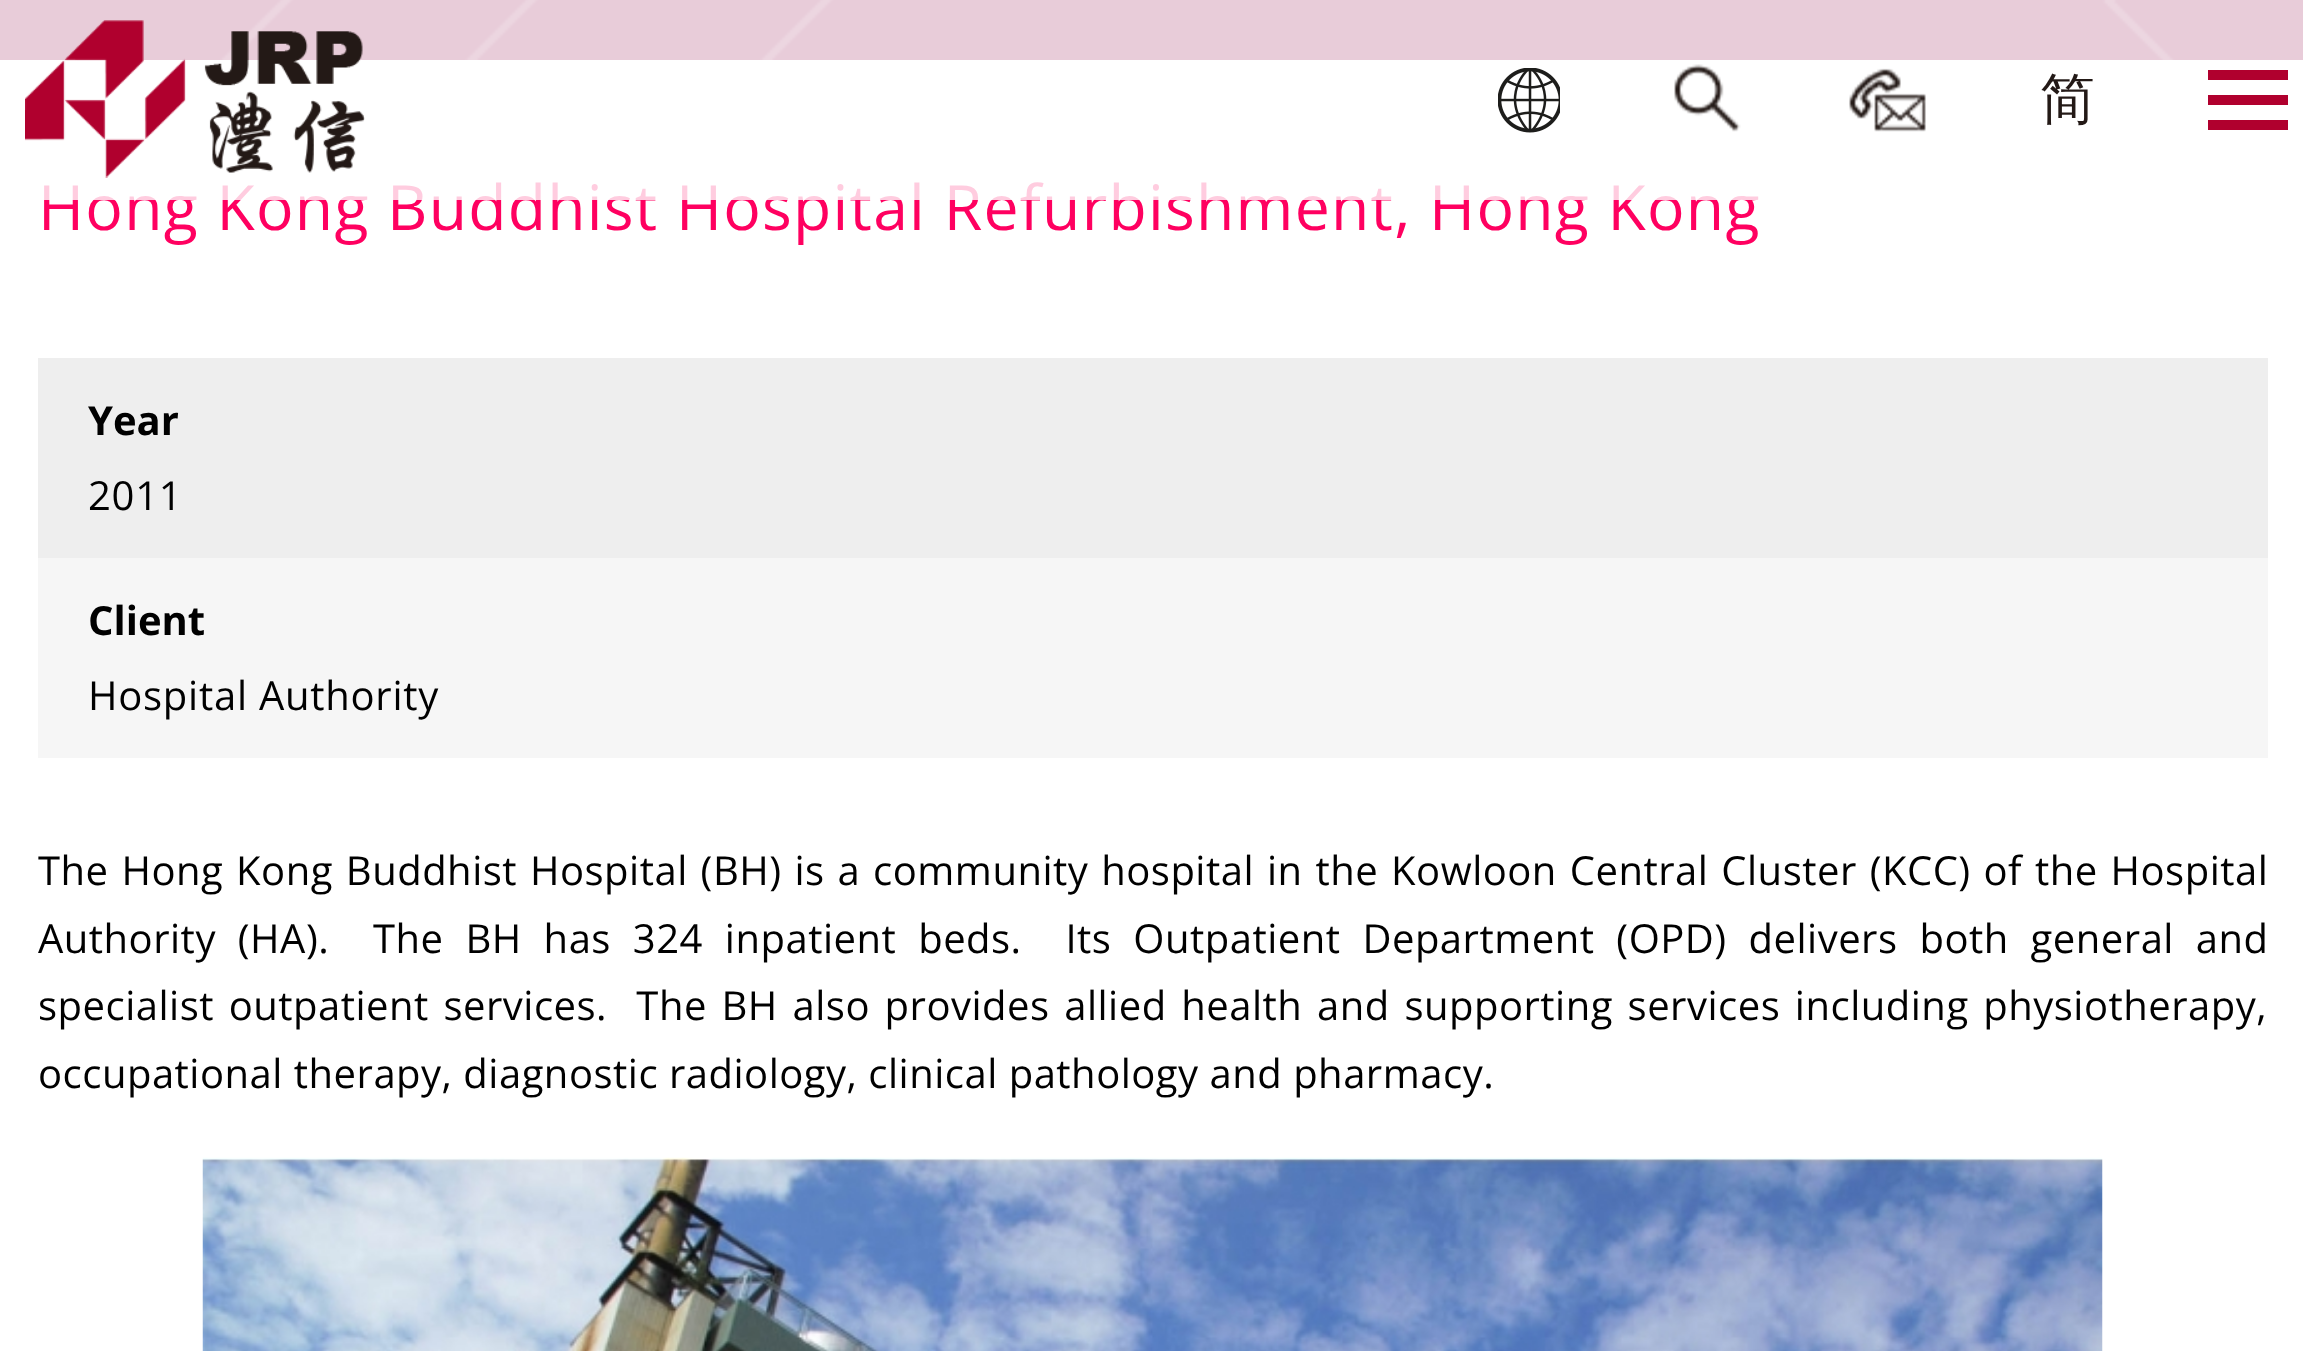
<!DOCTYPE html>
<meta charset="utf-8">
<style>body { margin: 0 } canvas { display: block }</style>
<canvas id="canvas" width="2303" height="1351"></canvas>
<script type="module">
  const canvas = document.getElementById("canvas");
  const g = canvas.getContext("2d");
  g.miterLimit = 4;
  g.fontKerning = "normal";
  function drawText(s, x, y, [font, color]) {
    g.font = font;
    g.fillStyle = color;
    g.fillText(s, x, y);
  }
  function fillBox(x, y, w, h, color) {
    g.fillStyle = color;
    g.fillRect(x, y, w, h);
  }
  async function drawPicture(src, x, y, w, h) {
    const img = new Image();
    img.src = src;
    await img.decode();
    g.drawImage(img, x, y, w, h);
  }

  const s1 = ["62.5px Open Sans", "#FF0060"];
  const s2 = ["500 55px WenQuanYi Zen Hei", "#231916"];
  const s3 = ["bold 40px Open Sans", "#000000"];
  const s4 = ["40px Open Sans", "#000000"];

  fillBox(0, 0, 2303, 1351, "#FFFFFF");
  fillBox(0, 0, 2303, 60, "#8A0041");
  await drawPicture("pic5.png", 220, 0, 74, 60);
  await drawPicture("pic6.png", 465, 0, 74, 60);
  await drawPicture("pic7.png", 760, 0, 74, 60);
  await drawPicture("pic8.png", 2102, 0, 73, 60);
  g.letterSpacing = "1.25px";
  drawText("Hong Kong Buddhist Hospital Refurbishment, Hong Kong", 38, 230, s1);
  fillBox(0, 0, 2303, 200, "rgba(255, 255, 255, 0.8)");
  await drawPicture("pic1.png", 25, 20, 340, 158);
  await drawPicture("pic2.png", 1498, 68, 62, 65);
  await drawPicture("pic3.png", 1674, 64, 67, 68);
  await drawPicture("pic4.png", 1849, 68, 77, 64);
  g.letterSpacing = "0px";
  drawText("简", 2040, 118, s2);
  fillBox(2208, 70, 80, 10, "#B0002E");
  fillBox(2208, 95, 80, 10, "#B0002E");
  fillBox(2208, 120, 80, 10, "#B0002E");
  fillBox(38, 358, 2230, 200, "#EEEEEE");
  drawText("Year", 88, 435, s3);
  g.letterSpacing = "0.75px";
  drawText("2011", 88, 510, s4);
  fillBox(38, 558, 2230, 200, "#F6F6F6");
  g.letterSpacing = "0px";
  drawText("Client", 88, 635, s3);
  g.letterSpacing = "0.75px";
  drawText("Hospital Authority", 88, 710, s4);
  g.letterSpacing = "0.5px";
  g.wordSpacing = "2px";
  drawText("The Hong Kong Buddhist Hospital (BH) is a community hospital in the Kowloon Central Cluster (KCC) of the Hospital", 38, 885, s4);
  g.wordSpacing = "11px";
  drawText("Authority (HA).  The BH has 324 inpatient beds.  Its Outpatient Department (OPD) delivers both general and", 38, 953, s4);
  g.wordSpacing = "3.75px";
  drawText("specialist outpatient services.  The BH also provides allied health and supporting services including physiotherapy,", 38, 1020, s4);
  g.wordSpacing = "0px";
  drawText("occupational therapy, diagnostic radiology, clinical pathology and pharmacy.", 38, 1088, s4);
  await drawPicture("pic9.png", 202, 1157, 1901, 194);
</script>
